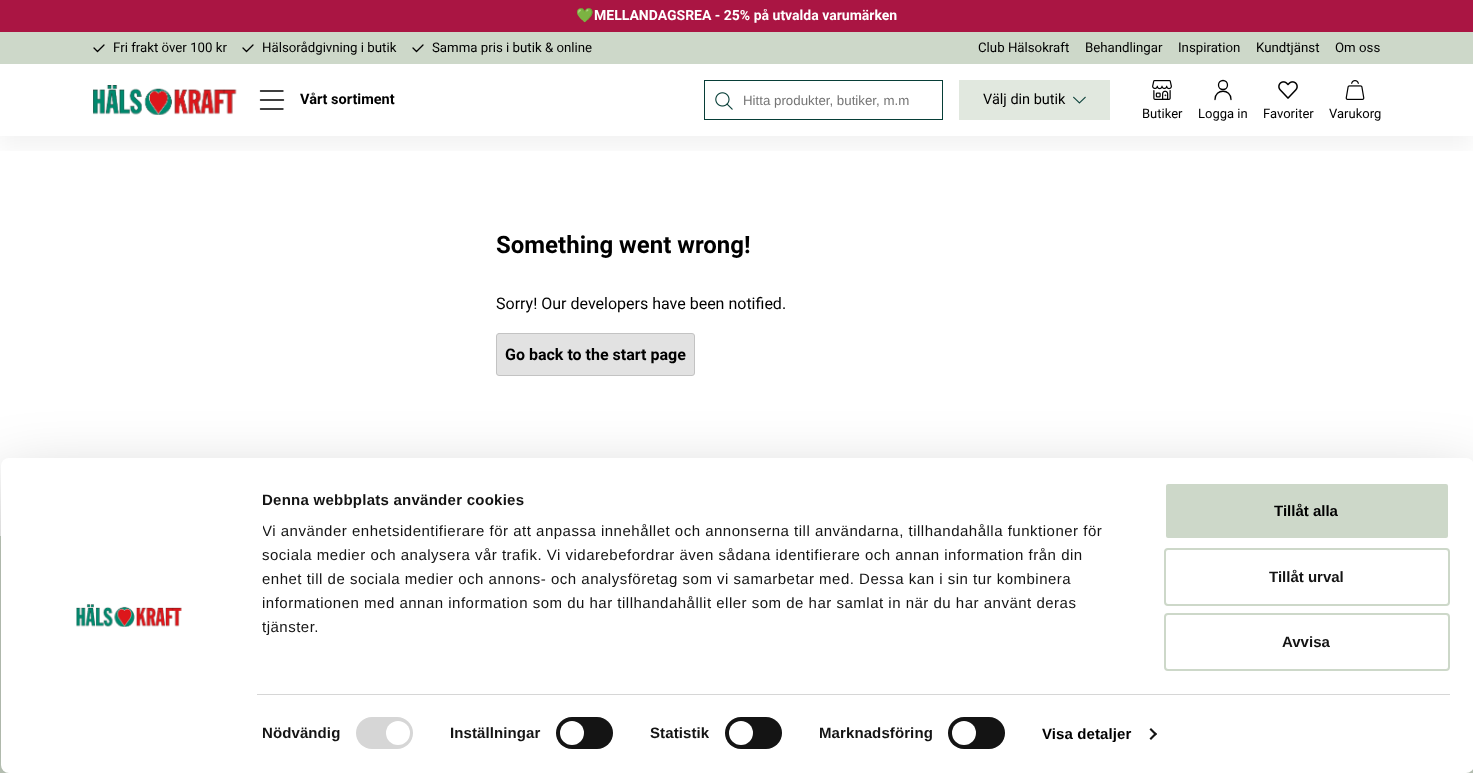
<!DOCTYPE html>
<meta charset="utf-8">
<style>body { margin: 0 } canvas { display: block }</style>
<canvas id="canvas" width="1473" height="773"></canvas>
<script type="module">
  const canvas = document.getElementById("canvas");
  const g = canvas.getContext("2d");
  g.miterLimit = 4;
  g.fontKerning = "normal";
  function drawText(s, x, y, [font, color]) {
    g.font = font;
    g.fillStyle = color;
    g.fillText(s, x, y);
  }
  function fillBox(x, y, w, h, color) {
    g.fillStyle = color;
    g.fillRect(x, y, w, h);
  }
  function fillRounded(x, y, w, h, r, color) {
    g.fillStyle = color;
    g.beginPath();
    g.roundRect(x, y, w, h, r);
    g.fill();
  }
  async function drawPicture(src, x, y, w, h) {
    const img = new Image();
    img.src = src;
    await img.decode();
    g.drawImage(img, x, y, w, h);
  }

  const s1 = ["bold 14px Noto Color Emoji", "#FFFFFF"];
  const s2 = ["bold 14px Roboto", "#FFFFFF"];
  const s3 = ["13.25px Roboto", "#000000"];
  const s4 = ["bold 14.5px Roboto", "#000000"];
  const s5 = ["13.3px Liberation Sans", "#757575"];
  const s6 = ["14.5px Roboto", "#000000"];
  const s7 = ["13px Roboto", "#000000"];
  const s8 = ["bold 24px Roboto", "#000000"];
  const s9 = ["16px Roboto", "#000000"];
  const s10 = ["bold 16px Roboto", "#000000"];
  const s11 = ["bold 15px Liberation Sans", "#141414"];
  const s12 = ["15px Liberation Sans", "#141414"];
  const s13 = ["bold 15px Liberation Sans", "#000000"];

  fillBox(0, 0, 1473, 773, "#FFFFFF");
  fillBox(0, 0, 1473, 32, "#AA1543");
  drawText("💚", 576, 20, s1);
  drawText("MELLANDAGSREA - 25% på utvalda varumärken", 594, 20, s2);
  fillBox(0, 32, 1473, 32, "#CDD8C9");
  g.beginPath();
  g.moveTo(94, 48);
  g.lineTo(97.5, 51.5);
  g.lineTo(104, 45);
  g.strokeStyle = "#000000";
  g.lineWidth = 1.3;
  g.lineCap = "round";
  g.lineJoin = "round";
  g.stroke();
  drawText("Fri frakt över 100 kr", 113, 52, s3);
  g.beginPath();
  g.moveTo(243, 48);
  g.lineTo(246.5, 51.5);
  g.lineTo(253, 45);
  g.stroke();
  drawText("Hälsorådgivning i butik", 262, 52, s3);
  g.beginPath();
  g.moveTo(413, 48);
  g.lineTo(416.5, 51.5);
  g.lineTo(423, 45);
  g.stroke();
  drawText("Samma pris i butik & online", 432, 52, s3);
  drawText("Club Hälsokraft", 978, 52, s3);
  drawText("Behandlingar", 1085, 52, s3);
  drawText("Inspiration", 1178, 52, s3);
  drawText("Kundtjänst", 1256, 52, s3);
  drawText("Om oss", 1335, 52, s3);
  g.save();
  g.beginPath();
  g.rect(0, 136, 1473, 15);
  g.clip();
  g.fillStyle = "rgba(0, 0, 0, 0.05)";
  g.filter = "blur(12px)";
  g.beginPath();
  g.rect(0, 76, 1473, 72);
  g.fill();
  g.filter = "none";
  g.restore();
  await drawPicture("pic1.png", 93, 85, 144, 30);
  g.beginPath();
  g.moveTo(260.5, 91);
  g.lineTo(283, 91);
  g.moveTo(260.5, 100);
  g.lineTo(283.5, 100);
  g.moveTo(260.5, 109);
  g.lineTo(283, 109);
  g.lineWidth = 1.4;
  g.lineJoin = "miter";
  g.stroke();
  drawText("Vårt sortiment", 300, 104, s4);
  g.strokeStyle = "#073E37";
  g.lineWidth = 1;
  g.strokeRect(704.5, 80.5, 238, 39);
  await drawPicture("pic2.png", 715, 92, 18, 18);
  drawText("Hitta produkter, butiker, m.m", 743, 105, s5);
  fillBox(959, 80, 151, 40, "#E1E8DF");
  drawText("Välj din butik", 983, 104, s6);
  await drawPicture("pic3.png", 1073, 96, 13, 8);
  await drawPicture("pic4.png", 1152, 80, 20, 20);
  drawText("Butiker", 1142, 118, s7);
  g.beginPath();
  g.arc(1223, 85, 4.5, 0, Math.PI * 2);
  g.strokeStyle = "#000000";
  g.lineWidth = 1.3;
  g.stroke();
  g.beginPath();
  g.moveTo(1215, 99.5);
  g.bezierCurveTo(1215, 88.5, 1231, 88.5, 1231, 99.5);
  g.lineJoin = "round";
  g.stroke();
  drawText("Logga in", 1198, 118, s7);
  await drawPicture("pic5.png", 1278, 81, 20, 18);
  drawText("Favoriter", 1263, 118, s7);
  await drawPicture("pic6.png", 1345, 80, 20, 20);
  drawText("Varukorg", 1329, 118, s7);
  drawText("Something went wrong!", 496, 253, s8);
  drawText("Sorry! Our developers have been notified.", 496, 309, s9);
  g.fillStyle = "#E2E2E2";
  g.beginPath();
  g.roundRect(496.5, 333.5, 198, 42, 2.5);
  g.fill();
  g.strokeStyle = "#C3C3C3";
  g.lineWidth = 1;
  g.lineJoin = "miter";
  g.stroke();
  drawText("Go back to the start page", 505, 360, s10);
  fillBox(0, 536, 1473, 237, "#CDD8C9");
  g.fillStyle = "rgba(0, 0, 0, 0.3)";
  g.filter = "blur(35px)";
  g.beginPath();
  g.roundRect(1, 488, 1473, 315, 8);
  g.fill();
  g.filter = "none";
  fillRounded(1, 458, 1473, 315, 8, "#FFFFFF");
  await drawPicture("pic7.png", 76, 604, 106, 23);
  g.letterSpacing = "0.25px";
  drawText("Denna webbplats använder cookies", 262, 505, s11);
  g.save();
  g.beginPath();
  g.rect(263, 488, 872, 177);
  g.clip();
  g.letterSpacing = "0.5px";
  drawText("Vi använder enhetsidentifierare för att anpassa innehållet och annonserna till användarna, tillhandahålla funktioner för", 262, 536, s12);
  g.restore();
  g.letterSpacing = "0.5px";
  drawText("sociala medier och analysera vår trafik. Vi vidarebefordrar även sådana identifierare och annan information från din", 262, 560, s12);
  drawText("enhet till de sociala medier och annons- och analysföretag som vi samarbetar med. Dessa kan i sin tur kombinera", 262, 584, s12);
  drawText("informationen med annan information som du har tillhandahållit eller som de har samlat in när du har använt deras", 262, 608, s12);
  drawText("tjänster.", 262, 632, s12);
  fillBox(257, 694, 1193, 1, "#D6D6D6");
  g.letterSpacing = "0.1px";
  drawText("Nödvändig", 262, 738, s11);
  fillRounded(356, 717, 57, 32, 16, "#D6D6D6");
  g.fillStyle = "#FFFFFF";
  g.beginPath();
  g.arc(398, 733, 12, 0, Math.PI * 2);
  g.fill();
  drawText("Inställningar", 450, 738, s11);
  fillRounded(556, 717, 57, 32, 16, "#141414");
  g.fillStyle = "#FFFFFF";
  g.beginPath();
  g.arc(572, 733, 12, 0, Math.PI * 2);
  g.fill();
  drawText("Statistik", 650, 738, s11);
  fillRounded(725, 717, 57, 32, 16, "#141414");
  g.fillStyle = "#FFFFFF";
  g.beginPath();
  g.arc(741, 733, 12, 0, Math.PI * 2);
  g.fill();
  drawText("Marknadsföring", 819, 738, s11);
  fillRounded(948, 717, 57, 32, 16, "#141414");
  g.fillStyle = "#FFFFFF";
  g.beginPath();
  g.arc(964, 733, 12, 0, Math.PI * 2);
  g.fill();
  drawText("Visa detaljer", 1042, 739, s13);
  g.fillStyle = "#141414";
  g.beginPath();
  g.moveTo(1151, 728);
  g.lineTo(1157, 734);
  g.lineTo(1155.5, 735.5);
  g.lineTo(1149.5, 729.5);
  g.closePath();
  g.fill();
  g.beginPath();
  g.moveTo(1155.5, 732.5);
  g.lineTo(1157, 734);
  g.lineTo(1151, 740);
  g.lineTo(1149.5, 738.5);
  g.closePath();
  g.fill();
  g.fillStyle = "#CDD8C9";
  g.beginPath();
  g.roundRect(1165, 483, 284, 56, 3);
  g.fill();
  g.strokeStyle = "#FFFFFF";
  g.lineWidth = 2;
  g.stroke();
  g.letterSpacing = "0px";
  drawText("Tillåt alla", 1274, 516, s13);
  g.beginPath();
  g.roundRect(1165, 549, 284, 56, 3);
  g.strokeStyle = "#CDD8C9";
  g.stroke();
  drawText("Tillåt urval", 1269, 582, s11);
  g.beginPath();
  g.roundRect(1165, 614, 284, 56, 3);
  g.stroke();
  drawText("Avvisa", 1282, 647, s11);
</script>
